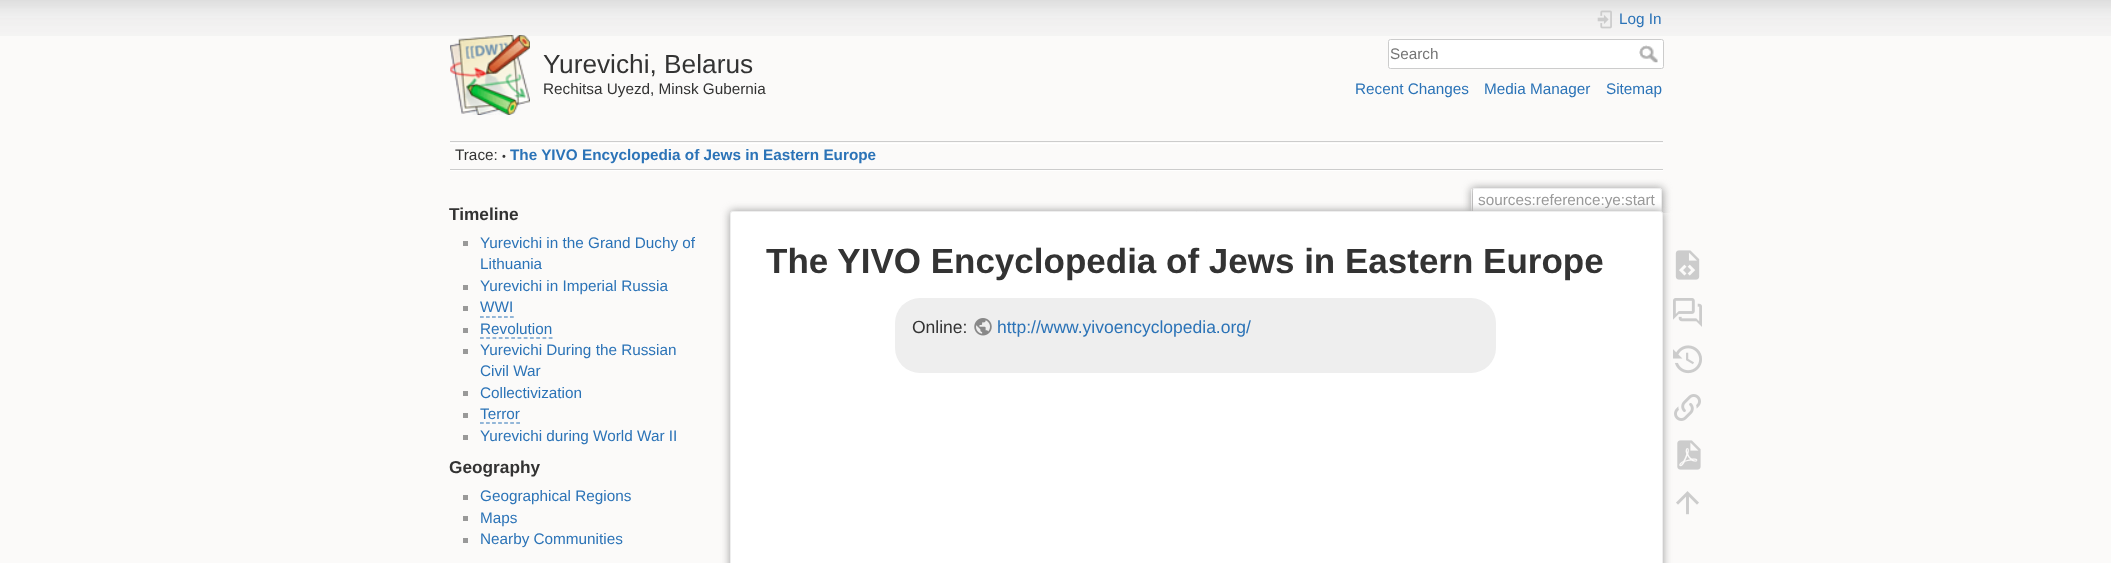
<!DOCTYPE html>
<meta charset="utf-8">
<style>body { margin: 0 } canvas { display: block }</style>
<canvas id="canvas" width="2111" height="563"></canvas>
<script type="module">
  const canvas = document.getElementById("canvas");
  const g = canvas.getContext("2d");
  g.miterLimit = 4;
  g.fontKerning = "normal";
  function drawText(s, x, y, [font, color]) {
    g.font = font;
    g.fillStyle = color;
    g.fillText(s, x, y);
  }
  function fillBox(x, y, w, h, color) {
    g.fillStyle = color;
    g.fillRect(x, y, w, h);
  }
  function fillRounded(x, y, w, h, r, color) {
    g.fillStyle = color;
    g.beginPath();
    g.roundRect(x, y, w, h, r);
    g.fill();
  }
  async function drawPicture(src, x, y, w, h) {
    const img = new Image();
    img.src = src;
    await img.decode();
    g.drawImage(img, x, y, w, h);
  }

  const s1 = ["26.25px Liberation Sans", "#333333"];
  const s2 = ["15.3px Liberation Sans", "#333333"];
  const s3 = ["15.3px Liberation Sans", "#2B73B7"];
  const s4 = ["15.3px Liberation Sans", "#757575"];
  const s5 = ["11px Liberation Sans", "#333333"];
  const s6 = ["bold 15.3px Liberation Sans", "#2B73B7"];
  const s7 = ["bold 17.25px Liberation Sans", "#333333"];
  const s8 = ["15.3px Liberation Sans", "#999999"];
  const s9 = ["bold 35px Liberation Sans", "#333333"];
  const s10 = ["17.5px Liberation Sans", "#333333"];
  const s11 = ["17.5px Liberation Sans", "#2B73B7"];

  fillBox(0, 0, 2111, 563, "#FBFAF9");
  await drawPicture("pic1.png", 0, 0, 2111, 36);
  await drawPicture("pic2.png", 450, 35, 80, 80);
  drawText("Yurevichi, Belarus", 543, 73, s1);
  drawText("Rechitsa Uyezd, Minsk Gubernia", 543, 94, s2);
  await drawPicture("pic3.png", 1597, 10, 15, 19);
  drawText("Log In", 1619, 24, s3);
  g.fillStyle = "#FFFFFF";
  g.beginPath();
  g.roundRect(1388.5, 39.5, 275, 29, 2);
  g.fill();
  g.strokeStyle = "#CCCCCC";
  g.stroke();
  drawText("Search", 1390, 59, s4);
  await drawPicture("pic4.png", 1639, 45, 19, 18);
  drawText("Recent Changes", 1355, 94, s3);
  drawText("Media Manager", 1484, 94, s3);
  drawText("Sitemap", 1606, 94, s3);
  fillBox(450, 141, 1213, 1, "#CCCCCC");
  fillBox(450, 170, 1213, 1, "#FFFFFF");
  fillBox(450, 143, 1213, 1, "#FFFFFF");
  fillBox(450, 169, 1213, 1, "#CCCCCC");
  drawText("Trace:", 455, 160, s2);
  drawText("•", 502, 160, s5);
  drawText("The YIVO Encyclopedia of Jews in Eastern Europe", 510, 160, s6);
  drawText("Timeline", 449, 220, s7);
  fillBox(463, 241, 5, 5, "#999999");
  drawText("Yurevichi in the Grand Duchy of", 480, 248, s3);
  drawText("Lithuania", 480, 269, s3);
  fillBox(463, 285, 5, 5, "#999999");
  drawText("Yurevichi in Imperial Russia", 480, 291, s3);
  fillBox(463, 306, 5, 5, "#999999");
  drawText("WWI", 480, 312, s3);
  g.beginPath();
  g.moveTo(480, 317);
  g.lineTo(514, 317);
  g.strokeStyle = "#2B73B7";
  g.lineWidth = 1.2;
  g.setLineDash([3.75, 2.25]);
  g.stroke();
  fillBox(463, 328, 5, 5, "#999999");
  drawText("Revolution", 480, 334, s3);
  g.beginPath();
  g.moveTo(480, 338);
  g.lineTo(552.5, 338);
  g.setLineDash([3.75, 2.5]);
  g.stroke();
  fillBox(463, 349, 5, 5, "#999999");
  drawText("Yurevichi During the Russian", 480, 355, s3);
  drawText("Civil War", 480, 376, s3);
  fillBox(463, 391, 5, 5, "#999999");
  drawText("Collectivization", 480, 398, s3);
  fillBox(463, 413, 5, 5, "#999999");
  drawText("Terror", 480, 419, s3);
  g.beginPath();
  g.moveTo(480, 423);
  g.lineTo(520, 423);
  g.setLineDash([3.75, 2.29]);
  g.stroke();
  fillBox(463, 435, 5, 5, "#999999");
  drawText("Yurevichi during World War II", 480, 441, s3);
  drawText("Geography", 449, 473, s7);
  fillBox(463, 495, 5, 5, "#999999");
  drawText("Geographical Regions", 480, 501, s3);
  fillBox(463, 516, 5, 5, "#999999");
  drawText("Maps", 480, 523, s3);
  fillBox(463, 538, 5, 5, "#999999");
  drawText("Nearby Communities", 480, 544, s3);
  g.save();
  g.beginPath();
  g.rect(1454, 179, 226, 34);
  g.clip();
  g.fillStyle = "#999999";
  g.filter = "blur(4px)";
  g.beginPath();
  g.roundRect(1471, 188, 192, 25, 2.5);
  g.fill();
  g.filter = "none";
  g.restore();
  g.fillStyle = "#FFFFFF";
  g.beginPath();
  g.roundRect(1473, 189, 188, 24, [1, 1, 0, 0]);
  g.fill();
  fillBox(1473, 188, 188, 1, "#EEEEEE");
  fillBox(1661, 189, 1, 24, "#EEEEEE");
  fillBox(1471, 189, 1, 24, "#EEEEEE");
  drawText("sources:reference:ye:start", 1478, 205, s8);
  g.filter = "blur(4.5px)";
  g.beginPath();
  g.roundRect(730, 211, 933, 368, 2.5);
  g.fill();
  g.filter = "none";
  g.fillStyle = "#FFFFFF";
  g.beginPath();
  g.roundRect(730.5, 211.5, 932, 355, 2);
  g.fill();
  g.strokeStyle = "#EEEEEE";
  g.lineWidth = 1;
  g.setLineDash([]);
  g.stroke();
  drawText("The YIVO Encyclopedia of Jews in Eastern Europe", 766, 273, s9);
  fillRounded(895, 298, 601, 75, 25, "#EEEEEE");
  drawText("Online:", 912, 333, s10);
  await drawPicture("pic5.png", 974, 318, 18, 18);
  drawText("http://www.yivoencyclopedia.org/", 997, 333, s11);
  await drawPicture("pic6.png", 1675, 250, 25, 30);
  await drawPicture("pic7.png", 1673, 298, 29, 29);
  await drawPicture("pic8.png", 1673, 345, 29, 29);
  await drawPicture("pic9.png", 1674, 394, 27, 27);
  await drawPicture("pic10.png", 1677, 440, 24, 30);
  await drawPicture("pic11.png", 1676, 491, 23, 24);
</script>
